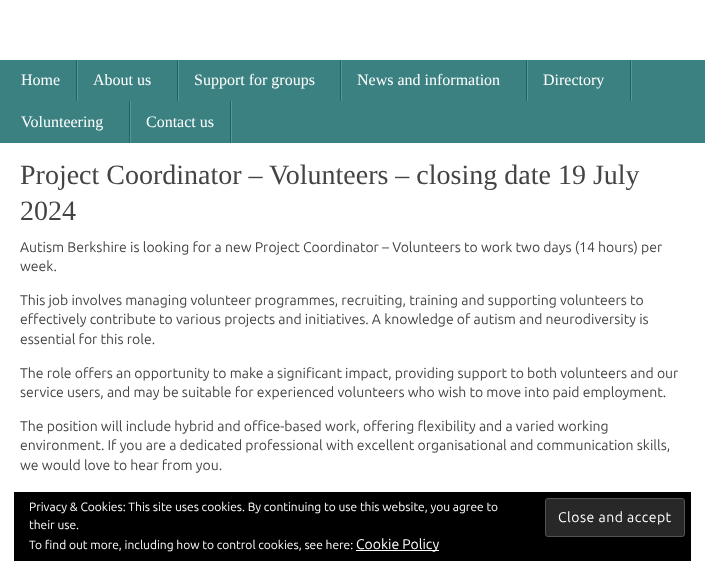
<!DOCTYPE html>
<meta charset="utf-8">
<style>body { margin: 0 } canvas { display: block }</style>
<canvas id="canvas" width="705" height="575"></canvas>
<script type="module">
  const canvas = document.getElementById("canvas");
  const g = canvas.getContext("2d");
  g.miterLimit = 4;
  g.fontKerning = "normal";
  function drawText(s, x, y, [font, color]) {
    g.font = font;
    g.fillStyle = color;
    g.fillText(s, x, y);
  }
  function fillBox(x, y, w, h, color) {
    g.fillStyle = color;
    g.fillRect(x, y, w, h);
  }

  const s1 = ["16px Liberation Serif", "#FFFFFF"];
  const s2 = ["28px Liberation Serif", "#444444"];
  const s3 = ["14px Ubuntu", "#444444"];
  const s4 = ["12px Ubuntu", "#FFFFFF"];
  const s5 = ["14px Ubuntu", "#FFFFFF"];

  fillBox(0, 0, 705, 575, "#FFFFFF");
  fillBox(0, 60, 705, 83, "#3B8181");
  fillBox(77, 60, 1, 41, "#539999");
  fillBox(76, 60, 1, 41, "#1D6363");
  drawText("Home", 21, 85, s1);
  fillBox(178, 60, 1, 41, "#539999");
  fillBox(177, 60, 1, 41, "#1D6363");
  drawText("About us", 93, 85, s1);
  fillBox(341, 60, 1, 41, "#539999");
  fillBox(340, 60, 1, 41, "#1D6363");
  drawText("Support for groups", 194, 85, s1);
  fillBox(527, 60, 1, 41, "#539999");
  fillBox(526, 60, 1, 41, "#1D6363");
  drawText("News and information", 357, 85, s1);
  fillBox(631, 60, 1, 41, "#539999");
  fillBox(630, 60, 1, 41, "#1D6363");
  drawText("Directory", 543, 85, s1);
  fillBox(130, 101, 1, 42, "#539999");
  fillBox(129, 101, 1, 42, "#1D6363");
  drawText("Volunteering", 21, 127, s1);
  fillBox(231, 101, 1, 42, "#539999");
  fillBox(230, 101, 1, 42, "#1D6363");
  drawText("Contact us", 146, 127, s1);
  drawText("Project Coordinator – Volunteers – closing date 19 July", 20, 184, s2);
  drawText("2024", 20, 220, s2);
  drawText("Autism Berkshire is looking for a new Project Coordinator – Volunteers to work two days (14 hours) per", 20, 252, s3);
  drawText("week.", 20, 271, s3);
  drawText("This job involves managing volunteer programmes, recruiting, training and supporting volunteers to", 20, 305, s3);
  drawText("effectively contribute to various projects and initiatives. A knowledge of autism and neurodiversity is", 20, 324, s3);
  drawText("essential for this role.", 20, 344, s3);
  drawText("The role offers an opportunity to make a significant impact, providing support to both volunteers and our", 20, 378, s3);
  drawText("service users, and may be suitable for experienced volunteers who wish to move into paid employment.", 20, 397, s3);
  drawText("The position will include hybrid and office-based work, offering flexibility and a varied working", 20, 431, s3);
  drawText("environment. If you are a dedicated professional with excellent organisational and communication skills,", 20, 450, s3);
  drawText("we would love to hear from you.", 20, 470, s3);
  fillBox(14, 492, 677, 69, "#000000");
  drawText("Privacy & Cookies: This site uses cookies. By continuing to use this website, you agree to", 29, 511, s4);
  drawText("their use.", 29, 529, s4);
  g.fillStyle = "#282828";
  g.beginPath();
  g.roundRect(545.5, 498.5, 139, 38, 2.5);
  g.fill();
  g.strokeStyle = "#535353";
  g.stroke();
  g.letterSpacing = "0.5px";
  drawText("Close and accept", 558, 522, s5);
  g.letterSpacing = "0px";
  drawText("To find out more, including how to control cookies, see here:", 29, 549, s4);
  fillBox(356, 550, 83, 1, "#FFFFFF");
  drawText("Cookie Policy", 356, 549, s5);
</script>
